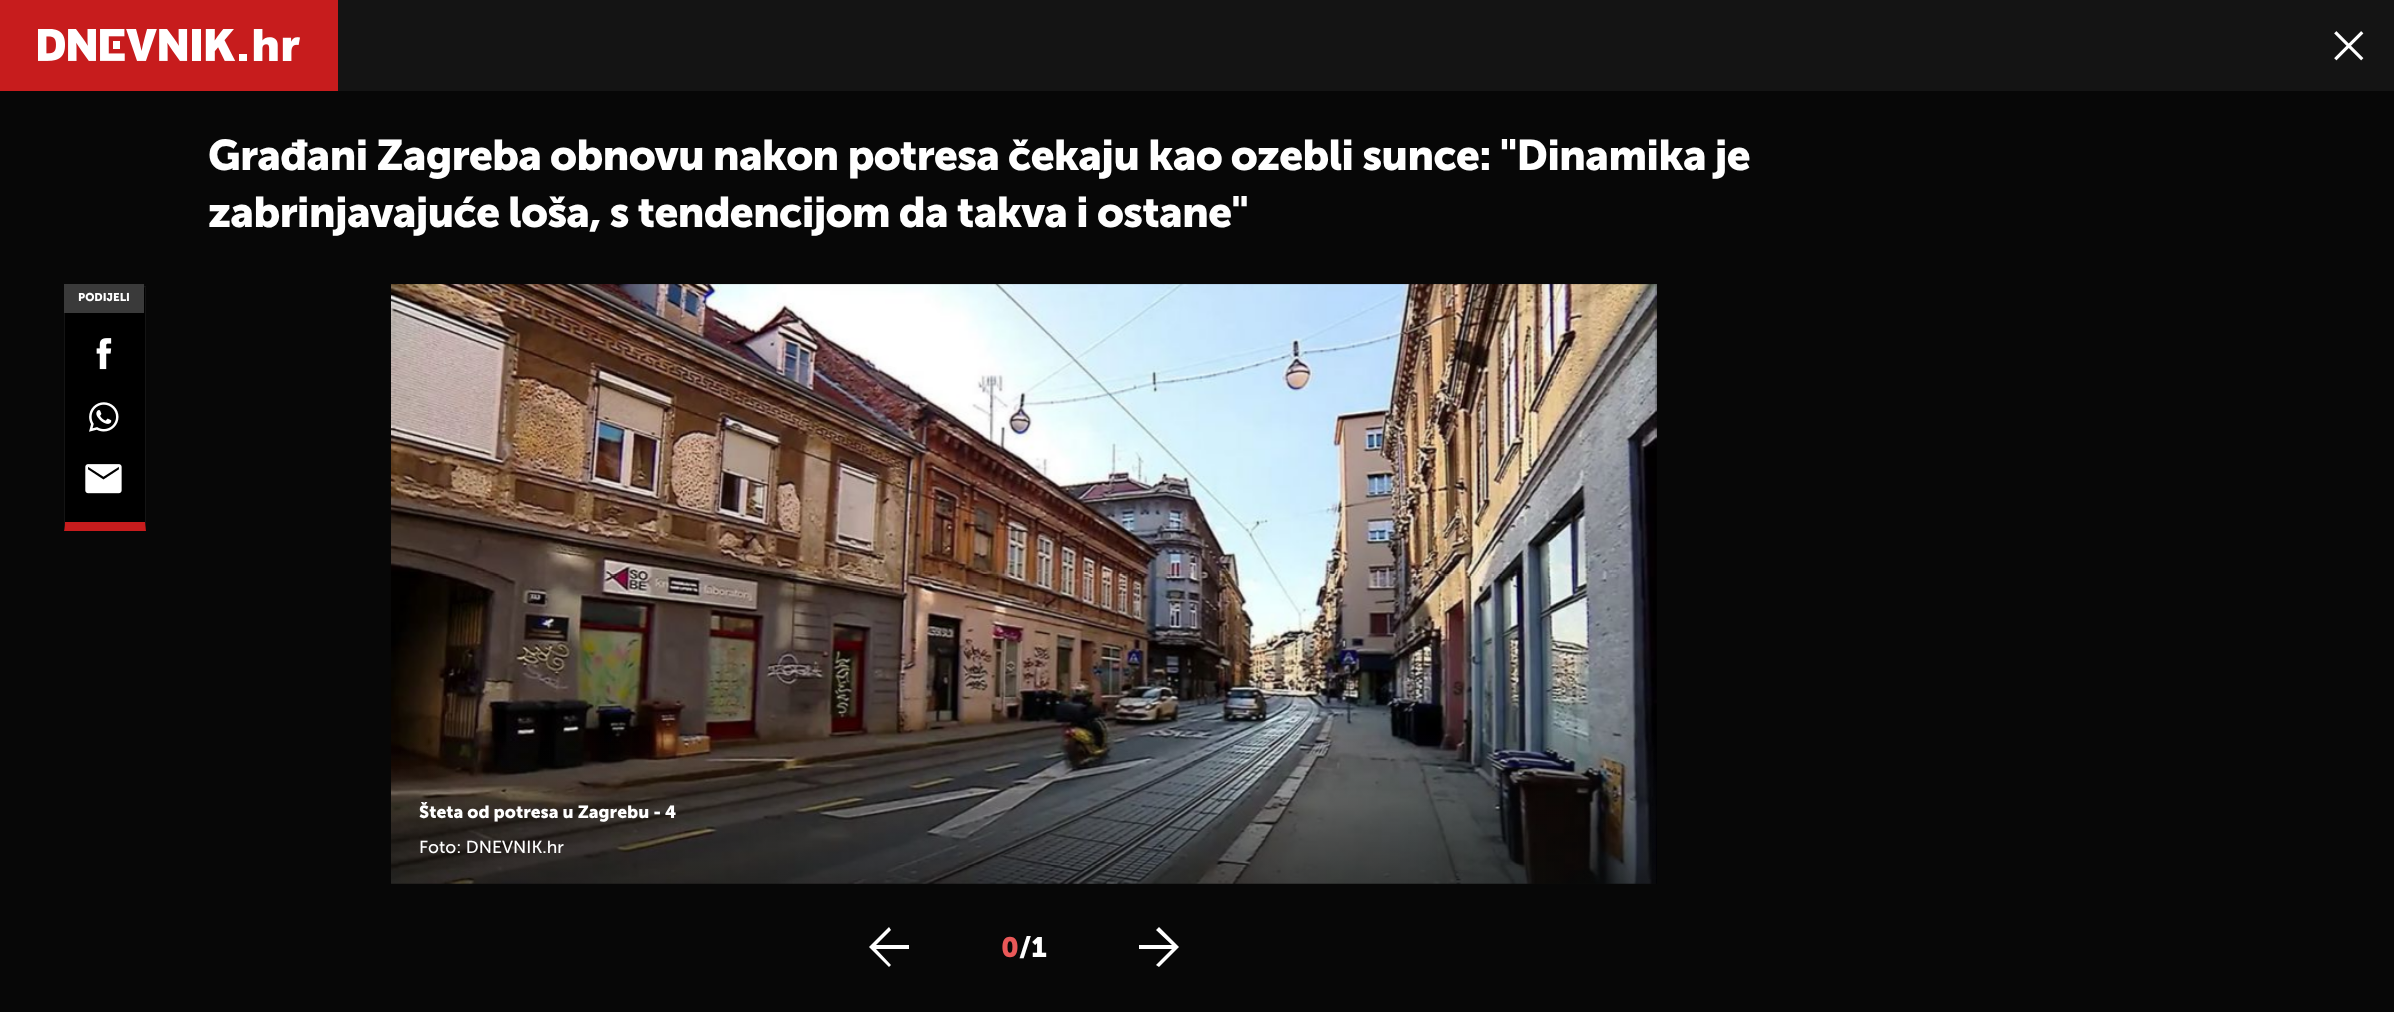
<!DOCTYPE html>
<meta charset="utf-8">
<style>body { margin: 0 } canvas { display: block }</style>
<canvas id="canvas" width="2394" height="1012"></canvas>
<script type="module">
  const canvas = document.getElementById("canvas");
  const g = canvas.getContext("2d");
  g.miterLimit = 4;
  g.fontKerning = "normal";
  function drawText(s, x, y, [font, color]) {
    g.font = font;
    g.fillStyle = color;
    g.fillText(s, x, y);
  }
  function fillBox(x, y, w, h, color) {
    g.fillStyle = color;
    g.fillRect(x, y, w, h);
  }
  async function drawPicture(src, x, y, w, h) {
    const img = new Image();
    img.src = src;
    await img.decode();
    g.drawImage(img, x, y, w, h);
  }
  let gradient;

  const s1 = ["42.5px Museo Sans", "#FFFFFF"];
  const s2 = ["11.25px Museo Sans", "#FFFFFF"];
  const s3 = ["17.5px Museo Sans", "#FFFFFF"];
  const s4 = ["17.5px 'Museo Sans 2'", "#FFFFFF"];
  const s5 = ["28px Museo Sans", "#E95858"];
  const s6 = ["28px Museo Sans", "#FFFFFF"];

  fillBox(0, 0, 2394, 1012, "#070707");
  fillBox(338, 0, 2056, 91, "#141414");
  fillBox(0, 0, 338, 91, "#C71C1D");
  await drawPicture("pic1.png", 38, 29, 262, 32);
  await drawPicture("pic2.png", 2334, 31, 30, 30);
  g.letterSpacing = "-0.85px";
  drawText("Građani Zagreba obnovu nakon potresa čekaju kao ozebli sunce: \"Dinamika je", 208, 170, s1);
  drawText("zabrinjavajuće loša, s tendencijom da takva i ostane\"", 208, 227, s1);
  fillBox(65, 288, 80, 234, "#000000");
  fillBox(144, 286, 2, 1, "#141414");
  g.beginPath();
  g.moveTo(146, 286);
  g.lineTo(146, 531);
  g.lineTo(145, 522);
  g.lineTo(145, 288);
  g.closePath();
  g.fill();
  g.fillStyle = "#C71C1D";
  g.beginPath();
  g.moveTo(146, 531);
  g.lineTo(64, 531);
  g.lineTo(65, 522);
  g.lineTo(145, 522);
  g.closePath();
  g.fill();
  g.fillStyle = "#141414";
  g.beginPath();
  g.moveTo(64, 531);
  g.lineTo(64, 286);
  g.lineTo(65, 288);
  g.lineTo(65, 522);
  g.closePath();
  g.fill();
  fillBox(64, 284, 80, 29, "#3A3A3A");
  g.letterSpacing = "0px";
  drawText("PODIJELI", 78, 301, s2);
  await drawPicture("pic3.png", 96, 338, 16, 32);
  await drawPicture("pic4.png", 89, 402, 30, 30);
  await drawPicture("pic5.png", 85, 464, 37, 30);
  await drawPicture("pic6.png", 391, 284, 1266, 600);
  gradient = g.createLinearGradient(1024, 884, 1024, 726);
  gradient.addColorStop(0, "rgba(20, 20, 20, 0.4)");
  gradient.addColorStop(1, "rgba(20, 20, 20, 0)");
  g.fillStyle = gradient;
  g.fillRect(391, 735, 1265, 149);
  drawText("Šteta od potresa u Zagrebu - 4", 419, 818, s3);
  drawText("Foto: DNEVNIK.hr", 419, 853, s4);
  g.beginPath();
  g.moveTo(889, 967);
  g.lineTo(891, 965);
  g.lineTo(876, 949);
  g.lineTo(909, 949);
  g.lineTo(909, 945);
  g.lineTo(876, 945);
  g.lineTo(891, 930);
  g.lineTo(889, 927);
  g.lineTo(869, 947);
  g.closePath();
  g.fill();
  drawText("0", 1001, 957, s5);
  drawText("/1", 1019, 957, s6);
  g.beginPath();
  g.moveTo(1159, 967);
  g.lineTo(1156, 965);
  g.lineTo(1172, 949);
  g.lineTo(1139, 949);
  g.lineTo(1139, 945);
  g.lineTo(1172, 945);
  g.lineTo(1156, 930);
  g.lineTo(1159, 927);
  g.lineTo(1179, 947);
  g.closePath();
  g.fill();
</script>
